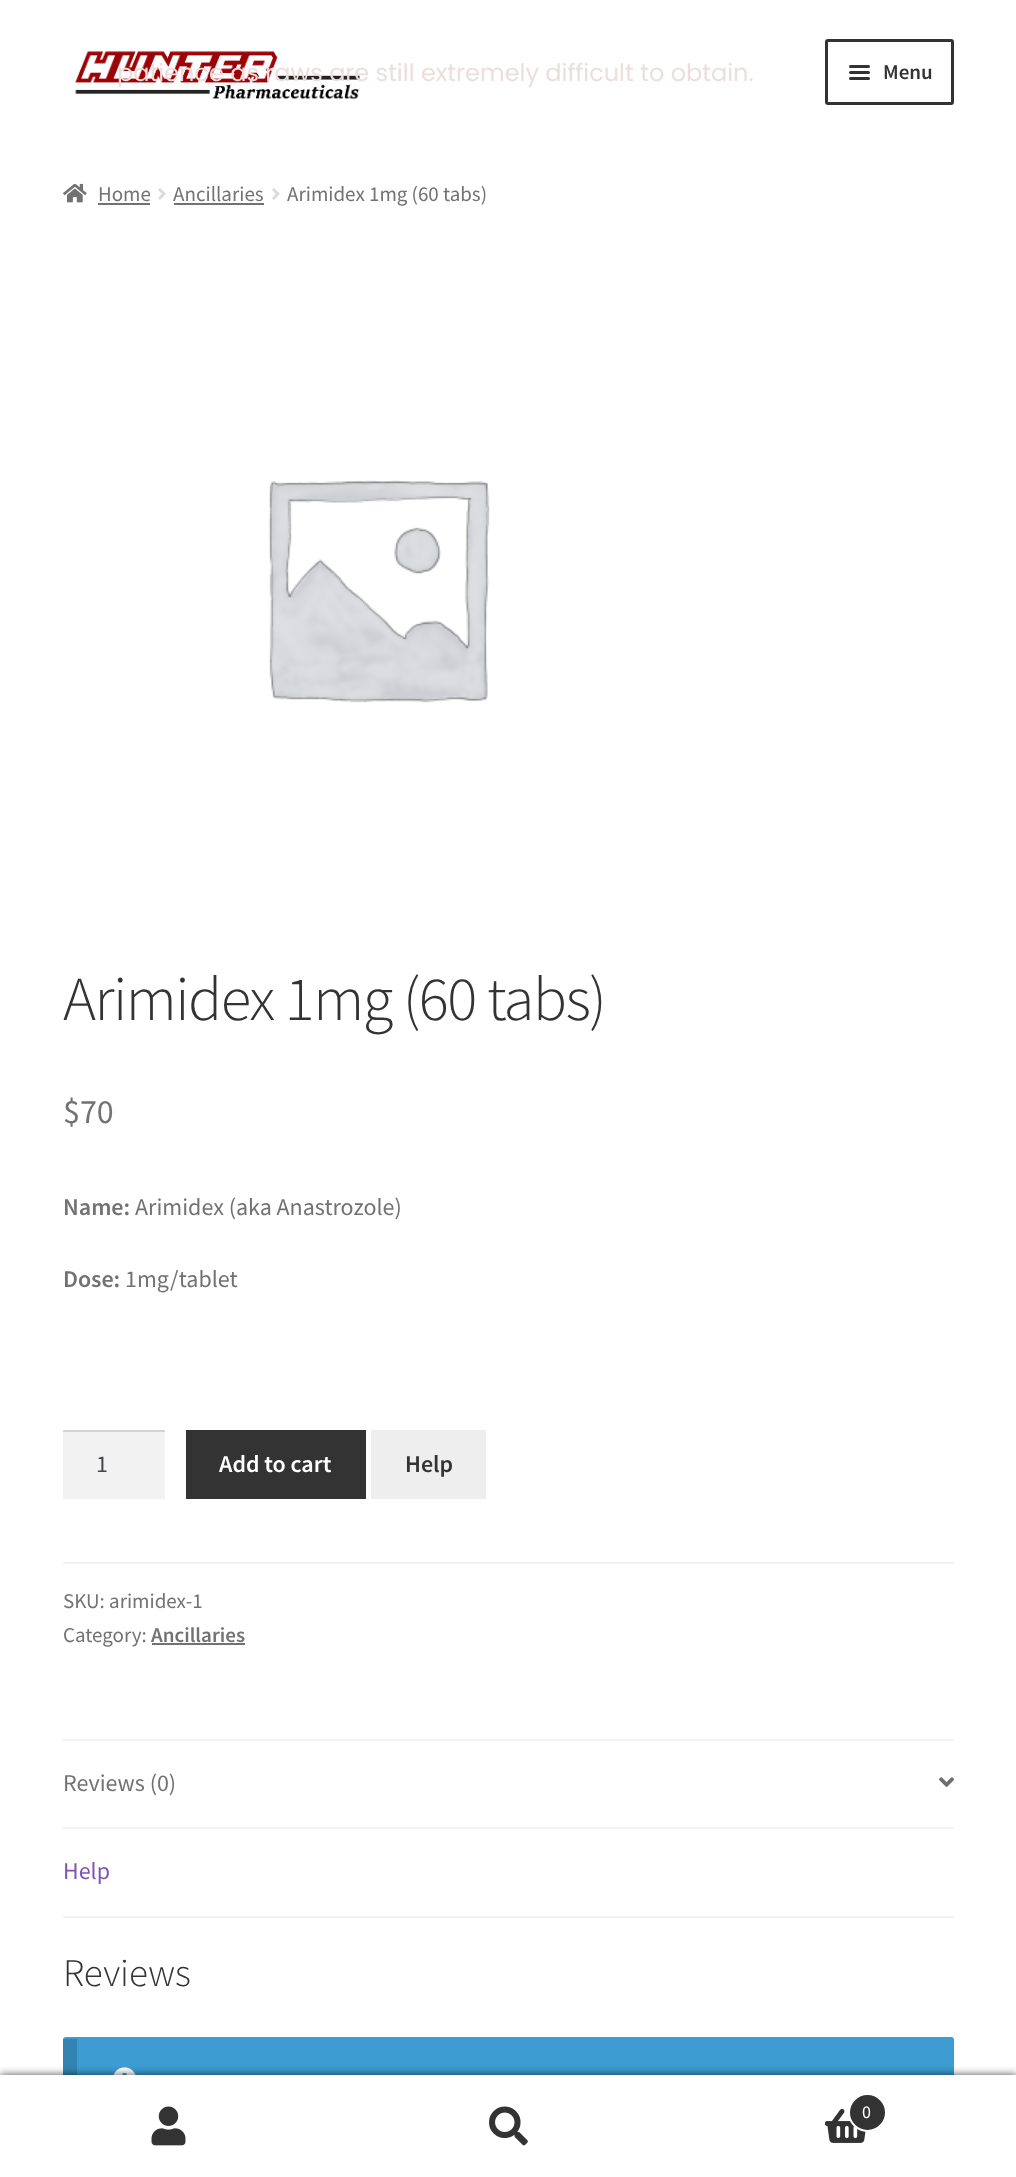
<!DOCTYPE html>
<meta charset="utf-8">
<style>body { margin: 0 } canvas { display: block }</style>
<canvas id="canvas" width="1016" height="2177"></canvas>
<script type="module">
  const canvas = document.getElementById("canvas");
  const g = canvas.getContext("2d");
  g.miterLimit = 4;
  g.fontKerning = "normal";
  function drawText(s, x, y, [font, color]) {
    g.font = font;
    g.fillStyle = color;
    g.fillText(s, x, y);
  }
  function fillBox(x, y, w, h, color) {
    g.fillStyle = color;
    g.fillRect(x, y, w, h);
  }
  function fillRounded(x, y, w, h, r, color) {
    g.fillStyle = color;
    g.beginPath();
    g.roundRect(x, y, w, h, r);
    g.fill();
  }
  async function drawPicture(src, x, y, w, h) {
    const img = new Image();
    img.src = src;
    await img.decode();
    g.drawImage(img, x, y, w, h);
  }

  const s1 = ["24px Poppins", "#EDDDDD"];
  const s2 = ["600 21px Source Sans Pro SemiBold", "#333333"];
  const s3 = ["21px Source Sans Pro", "#727272"];
  const s4 = ["300 62.75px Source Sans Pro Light", "#333333"];
  const s5 = ["34px Source Sans Pro", "#727272"];
  const s6 = ["600 24px Source Sans Pro SemiBold", "#727272"];
  const s7 = ["24px Source Sans Pro", "#727272"];
  const s8 = ["24px Source Sans Pro", "#43454B"];
  const s9 = ["600 24px Source Sans Pro SemiBold", "#FFFFFF"];
  const s10 = ["600 24px Source Sans Pro SemiBold", "#333333"];
  const s11 = ["600 21px Source Sans Pro SemiBold", "#727272"];
  const s12 = ["24px Source Sans Pro", "#7F54B3"];
  const s13 = ["300 39px Source Sans Pro Light", "#333333"];
  const s14 = ["18px Source Sans Pro", "#FFFFFF"];

  fillBox(0, 0, 1016, 2177, "#FFFFFF");
  await drawPicture("pic1.png", 75, 51, 286, 49);
  drawText("patience as raws are still extremely difficult to obtain.", 117, 81, s1);
  g.beginPath();
  g.roundRect(826.5, 40.5, 126, 63, 1.5);
  g.strokeStyle = "#333333";
  g.lineWidth = 3;
  g.stroke();
  fillRounded(849, 65, 21, 3, 1.5, "#333333");
  fillRounded(849, 71, 21, 3, 1.5, "#333333");
  drawText("Menu", 883, 79, s2);
  fillRounded(849, 77, 21, 3, 1.5, "#333333");
  await drawPicture("pic2.png", 63, 183, 24, 20);
  drawText("Home", 98, 201, s3);
  fillBox(98, 203, 52, 2, "#727272");
  await drawPicture("pic3.png", 158, 188, 8, 12);
  drawText("Ancillaries", 173, 201, s3);
  fillBox(174, 203, 90, 2, "#727272");
  await drawPicture("pic3.png", 272, 188, 8, 12);
  drawText("Arimidex 1mg (60 tabs)", 287, 201, s3);
  await drawPicture("pic4.png", 268, 480, 222, 223);
  g.letterSpacing = "-1.5px";
  drawText("Arimidex 1mg (60 tabs)", 63, 1020, s4);
  g.letterSpacing = "0px";
  drawText("$70", 63, 1123, s5);
  drawText("Name:", 63, 1215, s6);
  drawText("Arimidex (aka Anastrozole)", 135, 1215, s7);
  drawText("Dose:", 63, 1287, s6);
  drawText("1mg/tablet", 125, 1287, s7);
  fillBox(63, 1432, 102, 67, "#F2F2F2");
  fillBox(63, 1430, 102, 2, "#D4D4D4");
  drawText("1", 96, 1472, s8);
  fillBox(186, 1430, 180, 69, "#333333");
  drawText("Add to cart", 219, 1472, s9);
  fillBox(371, 1430, 115, 69, "#EEEEEE");
  drawText("Help", 405, 1472, s10);
  fillBox(63, 1562, 891, 2, "#F2F2F2");
  drawText("SKU: arimidex-1", 63, 1608, s3);
  drawText("Category:", 63, 1642, s3);
  drawText("Ancillaries", 151, 1642, s11);
  fillBox(152, 1643, 93, 2, "#727272");
  fillBox(63, 1739, 891, 2, "#F2F2F2");
  fillBox(63, 1827, 891, 2, "#F2F2F2");
  drawText("Reviews (0)", 63, 1791, s7);
  await drawPicture("pic5.png", 939, 1777, 15, 10);
  fillBox(63, 1916, 891, 2, "#F2F2F2");
  drawText("Help", 63, 1879, s12);
  drawText("Reviews", 63, 1986, s13);
  fillRounded(63, 2037, 891, 86, 3, "#3D9CD2");
  fillBox(63, 2039, 14, 36, "rgba(0, 0, 0, 0.15)");
  await drawPicture("pic6.png", 113, 2067, 23, 8);
  g.fillStyle = "rgba(0, 0, 0, 0.7)";
  g.filter = "blur(4.5px)";
  g.beginPath();
  g.rect(0, 2075, 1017, 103);
  g.fill();
  g.filter = "none";
  fillBox(0, 2075, 1016, 1, "#FFFFFF");
  fillBox(0, 2076, 1016, 101, "#FFFFFF");
  await drawPicture("pic7.png", 151, 2106, 35, 40);
  await drawPicture("pic8.png", 489, 2106, 39, 40);
  await drawPicture("pic9.png", 825, 2108, 41, 35);
  g.fillStyle = "#333333";
  g.beginPath();
  g.arc(867.5, 2112.5, 18.5, 0, Math.PI * 2);
  g.fill();
  g.strokeStyle = "#FFFFFF";
  g.lineWidth = 2;
  g.stroke();
  drawText("0", 862, 2118, s14);
</script>
